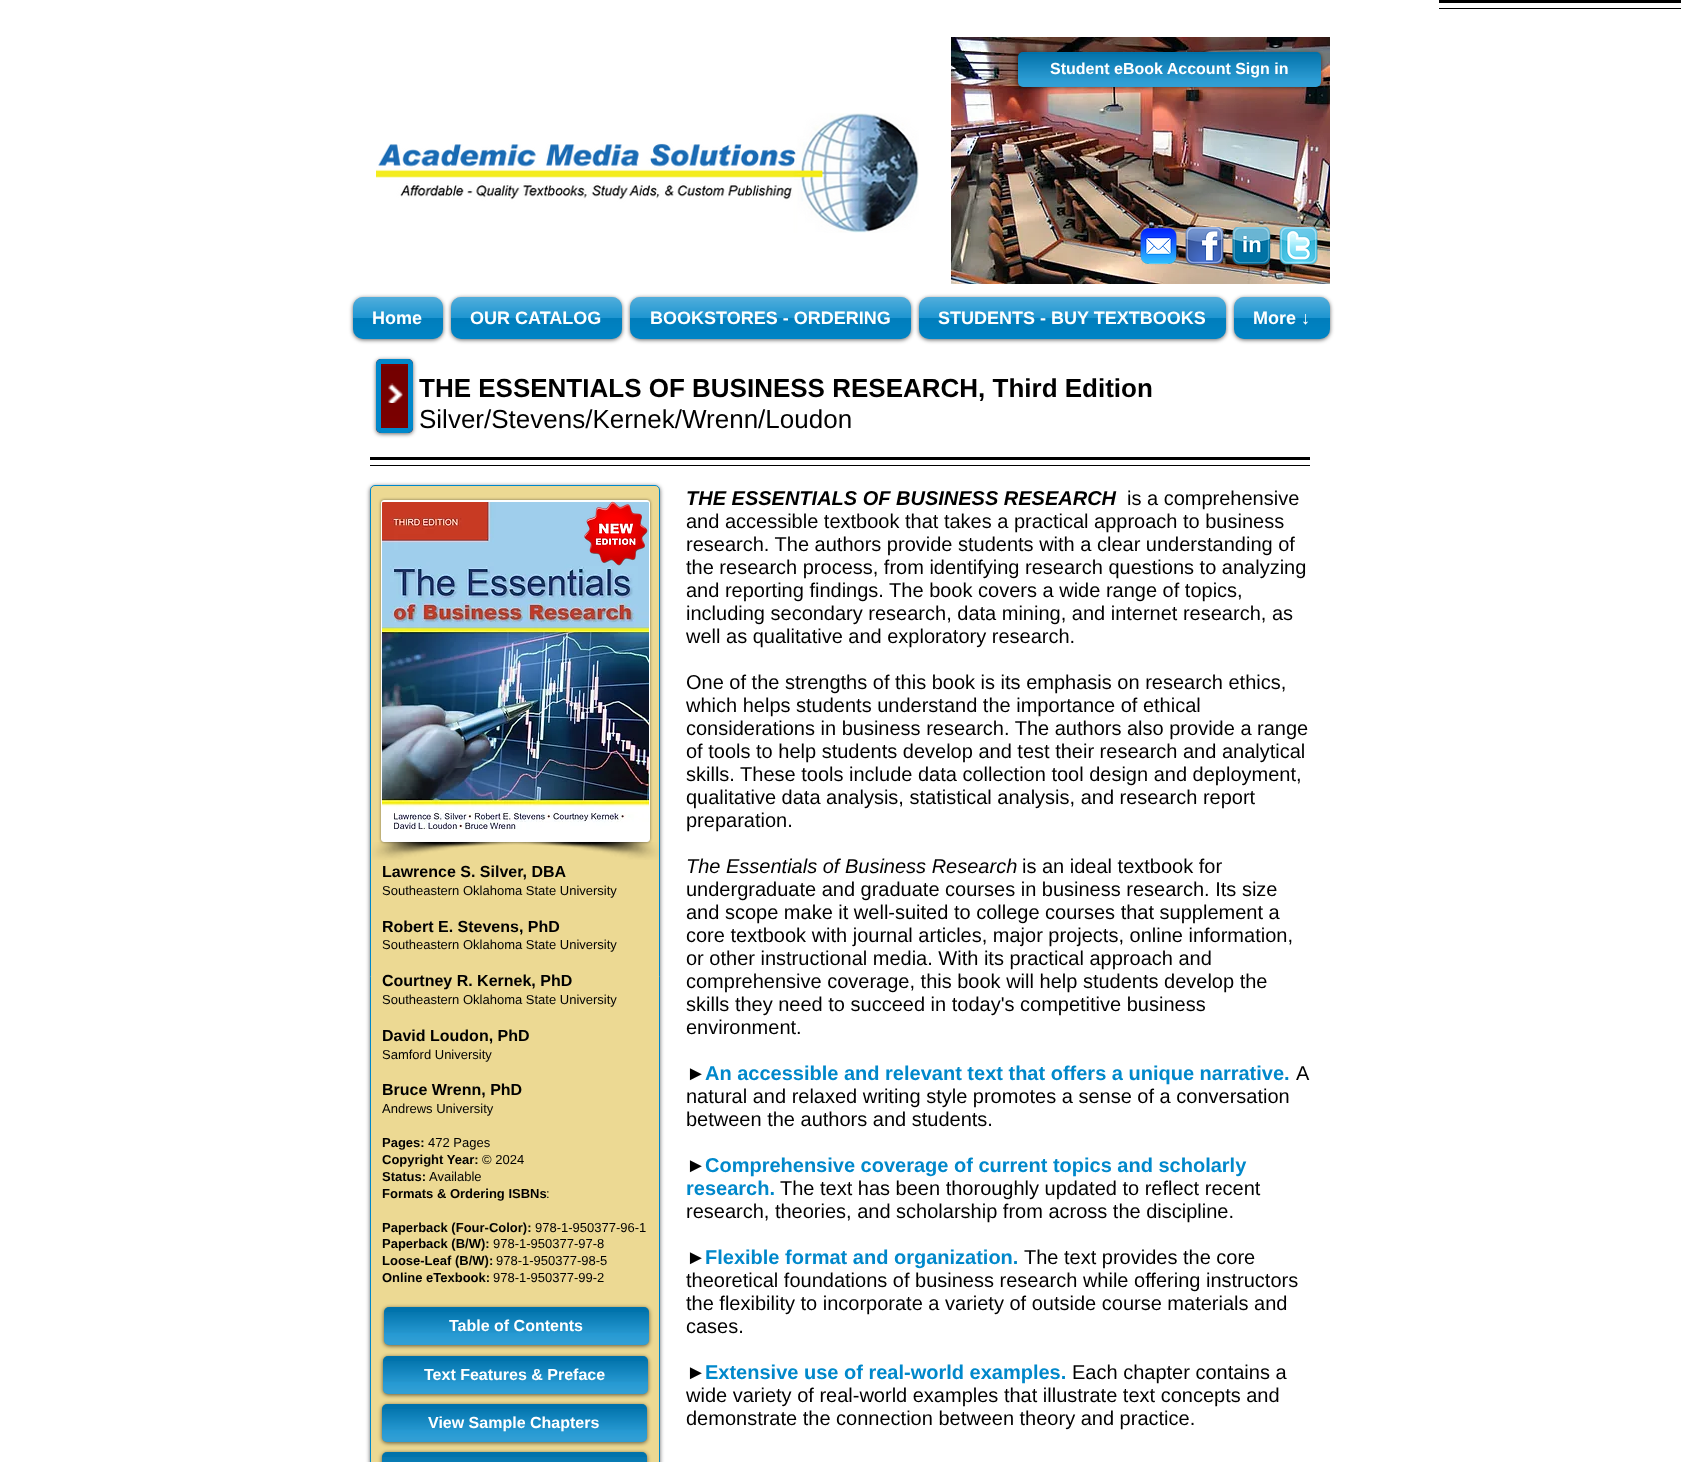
<!DOCTYPE html>
<meta charset="utf-8">
<style>body { margin: 0 } canvas { display: block }</style>
<canvas id="canvas" width="1681" height="1462"></canvas>
<script type="module">
  const canvas = document.getElementById("canvas");
  const g = canvas.getContext("2d");
  g.miterLimit = 4;
  g.fontKerning = "normal";
  function drawText(s, x, y, [font, color]) {
    g.font = font;
    g.fillStyle = color;
    g.fillText(s, x, y);
  }
  function fillBox(x, y, w, h, color) {
    g.fillStyle = color;
    g.fillRect(x, y, w, h);
  }
  function fillRounded(x, y, w, h, r, color) {
    g.fillStyle = color;
    g.beginPath();
    g.roundRect(x, y, w, h, r);
    g.fill();
  }
  async function drawPicture(src, x, y, w, h) {
    const img = new Image();
    img.src = src;
    await img.decode();
    g.drawImage(img, x, y, w, h);
  }

  const s1 = ["bold 16px Liberation Sans", "#FFFFFF"];
  const s2 = ["bold 18px Liberation Sans", "#FFFFFF"];
  const s3 = ["bold 26px Liberation Sans", "#000000"];
  const s4 = ["26px Liberation Sans", "#000000"];
  const s5 = ["bold 16px Liberation Sans", "#000000"];
  const s6 = ["13px Liberation Sans", "#000000"];
  const s7 = ["bold 13px Liberation Sans", "#000000"];
  const s8 = ["italic bold 20px Liberation Sans", "#000000"];
  const s9 = ["20px Liberation Sans", "#000000"];
  const s10 = ["italic 20px Liberation Sans", "#000000"];
  const s11 = ["bold 20px Liberation Sans", "#000000"];
  const s12 = ["bold 20px Liberation Sans", "#0088CB"];

  fillBox(0, 0, 1681, 1462, "#FFFFFF");
  fillBox(1439, 0, 242, 3, "#000000");
  fillBox(1439, 8, 242, 1, "#000000");
  await drawPicture("pic1.png", 951, 37, 379, 247);
  g.fillStyle = "rgba(0, 0, 0, 0.6)";
  g.filter = "blur(2px)";
  g.beginPath();
  g.roundRect(1018, 53, 303, 35, 5);
  g.fill();
  g.filter = "none";
  fillRounded(1018, 52, 303, 35, 5, "#0088CB");
  await drawPicture("pic2.png", 1018, 52, 303, 26);
  await drawPicture("pic3.png", 1018, 54, 303, 33);
  drawText("Student eBook Account Sign in", 1050, 74, s1);
  await drawPicture("pic4.png", 376, 113, 543, 120);
  await drawPicture("pic5.png", 1140, 227, 37, 38);
  await drawPicture("pic6.png", 1185, 227, 39, 38);
  await drawPicture("pic7.png", 1232, 227, 39, 38);
  await drawPicture("pic8.png", 1279, 227, 39, 38);
  g.fillStyle = "rgba(0, 0, 0, 0.6)";
  g.filter = "blur(2px)";
  g.beginPath();
  g.roundRect(353, 298, 90, 42, 10);
  g.fill();
  g.filter = "none";
  fillRounded(353, 297, 90, 42, 10, "#0088CB");
  await drawPicture("pic9.png", 353, 297, 90, 42);
  drawText("Home", 372, 324, s2);
  g.fillStyle = "rgba(0, 0, 0, 0.6)";
  g.filter = "blur(2px)";
  g.beginPath();
  g.roundRect(451, 298, 171, 42, 10);
  g.fill();
  g.filter = "none";
  fillRounded(451, 297, 171, 42, 10, "#0088CB");
  await drawPicture("pic10.png", 451, 297, 171, 42);
  drawText("OUR CATALOG", 470, 324, s2);
  g.fillStyle = "rgba(0, 0, 0, 0.6)";
  g.filter = "blur(2px)";
  g.beginPath();
  g.roundRect(630, 298, 281, 42, 10);
  g.fill();
  g.filter = "none";
  fillRounded(630, 297, 281, 42, 10, "#0088CB");
  await drawPicture("pic11.png", 630, 297, 281, 42);
  drawText("BOOKSTORES - ORDERING", 650, 324, s2);
  g.fillStyle = "rgba(0, 0, 0, 0.6)";
  g.filter = "blur(2px)";
  g.beginPath();
  g.roundRect(919, 298, 307, 42, 10);
  g.fill();
  g.filter = "none";
  fillRounded(919, 297, 307, 42, 10, "#0088CB");
  await drawPicture("pic12.png", 919, 297, 307, 42);
  drawText("STUDENTS - BUY TEXTBOOKS", 938, 324, s2);
  g.fillStyle = "rgba(0, 0, 0, 0.6)";
  g.filter = "blur(2px)";
  g.beginPath();
  g.roundRect(1234, 298, 96, 42, 10);
  g.fill();
  g.filter = "none";
  fillRounded(1234, 297, 96, 42, 10, "#0088CB");
  await drawPicture("pic13.png", 1234, 297, 96, 42);
  drawText("More ↓", 1253, 324, s2);
  g.fillStyle = "rgba(0, 0, 0, 0.6)";
  g.filter = "blur(2px)";
  g.beginPath();
  g.roundRect(376, 360, 37, 74, 5);
  g.fill();
  g.filter = "none";
  fillRounded(376, 359, 37, 74, 5, "#7F0000");
  await drawPicture("pic14.png", 381, 366, 27, 57);
  g.beginPath();
  g.roundRect(378.5, 361.5, 32, 69, 2.5);
  g.strokeStyle = "#0088CB";
  g.lineWidth = 5;
  g.stroke();
  await drawPicture("pic15.png", 388, 383, 15, 20);
  drawText("THE ESSENTIALS OF BUSINESS RESEARCH, Third Edition", 419, 397, s3);
  drawText("Silver/Stevens/Kernek/Wrenn/Loudon", 419, 428, s4);
  fillBox(370, 457, 940, 3, "#000000");
  fillBox(370, 465, 940, 1, "#000000");
  g.fillStyle = "rgba(0, 0, 0, 0.6)";
  g.filter = "blur(2px)";
  g.beginPath();
  g.roundRect(370, 486, 290, 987, 5);
  g.fill();
  g.filter = "none";
  g.fillStyle = "#ECD993";
  g.beginPath();
  g.roundRect(370.5, 485.5, 289, 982, 4.5);
  g.fill();
  g.lineWidth = 1;
  g.stroke();
  g.fillStyle = "rgba(0, 0, 0, 0.5)";
  g.filter = "blur(1.5px)";
  g.beginPath();
  g.roundRect(381, 500, 269, 342, 3);
  g.fill();
  g.filter = "none";
  g.fillStyle = "#FFFFFF";
  g.beginPath();
  g.roundRect(381.5, 500.5, 268, 341, 2.5);
  g.fill();
  g.strokeStyle = "#FFFFFF";
  g.stroke();
  await drawPicture("pic16.png", 382, 502, 267, 328);
  await drawPicture("pic17.png", 372, 842, 154, 18);
  await drawPicture("pic18.png", 505, 842, 154, 18);
  await drawPicture("pic19.png", 584, 501, 64, 65);
  drawText("Lawrence S. Silver, DBA", 382, 877, s5);
  drawText("Southeastern Oklahoma State University", 382, 895, s6);
  drawText("Robert E. Stevens, PhD", 382, 932, s5);
  drawText("Southeastern Oklahoma State University", 382, 949, s6);
  drawText("Courtney R. Kernek, PhD", 382, 986, s5);
  drawText("Southeastern Oklahoma State University", 382, 1004, s6);
  drawText("David Loudon, PhD", 382, 1041, s5);
  drawText("Samford University", 382, 1059, s6);
  drawText("Bruce Wrenn, PhD", 382, 1095, s5);
  drawText("Andrews University", 382, 1113, s6);
  drawText("Pages:", 382, 1147, s7);
  drawText("472 Pages", 428, 1147, s6);
  drawText("Copyright Year:", 382, 1164, s7);
  drawText("© 2024", 482, 1164, s6);
  drawText("Status:", 382, 1181, s7);
  drawText("Available", 429, 1181, s6);
  drawText("Formats & Ordering ISBNs", 382, 1198, s7);
  drawText(":", 546, 1198, s6);
  drawText("Paperback (Four-Color):", 382, 1232, s7);
  drawText("978-1-950377-96-1", 535, 1232, s6);
  drawText("Paperback (B/W):", 382, 1248, s7);
  drawText("978-1-950377-97-8", 493, 1248, s6);
  drawText("Loose-Leaf (B/W):", 382, 1265, s7);
  drawText("978-1-950377-98-5", 496, 1265, s6);
  drawText("Online eTexbook:", 382, 1282, s7);
  drawText("978-1-950377-99-2", 493, 1282, s6);
  g.fillStyle = "rgba(0, 0, 0, 0.6)";
  g.filter = "blur(2px)";
  g.beginPath();
  g.roundRect(384, 1308, 265, 38, 5);
  g.fill();
  g.filter = "none";
  fillRounded(384, 1307, 265, 38, 5, "#0088CB");
  await drawPicture("pic20.png", 384, 1307, 265, 26);
  await drawPicture("pic21.png", 384, 1312, 265, 33);
  drawText("Table of Contents", 449, 1331, s1);
  g.fillStyle = "rgba(0, 0, 0, 0.6)";
  g.filter = "blur(2px)";
  g.beginPath();
  g.roundRect(383, 1357, 265, 38, 5);
  g.fill();
  g.filter = "none";
  fillRounded(383, 1356, 265, 38, 5, "#0088CB");
  await drawPicture("pic20.png", 383, 1356, 265, 26);
  await drawPicture("pic21.png", 383, 1361, 265, 33);
  drawText("Text Features & Preface", 424, 1380, s1);
  g.fillStyle = "rgba(0, 0, 0, 0.6)";
  g.filter = "blur(2px)";
  g.beginPath();
  g.roundRect(382, 1405, 265, 38, 5);
  g.fill();
  g.filter = "none";
  fillRounded(382, 1404, 265, 38, 5, "#0088CB");
  await drawPicture("pic20.png", 382, 1404, 265, 26);
  await drawPicture("pic21.png", 382, 1409, 265, 33);
  drawText("View Sample Chapters", 428, 1428, s1);
  g.fillStyle = "rgba(0, 0, 0, 0.6)";
  g.filter = "blur(2px)";
  g.beginPath();
  g.roundRect(382, 1453, 265, 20, 5);
  g.fill();
  g.filter = "none";
  fillRounded(382, 1452, 265, 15, 5, "#0088CB");
  await drawPicture("pic22.png", 382, 1452, 265, 10);
  fillBox(382, 1457, 265, 5, "rgba(255, 255, 255, 0.03)");
  drawText("THE ESSENTIALS OF BUSINESS RESEARCH", 686, 505, s8);
  drawText("is a comprehensive", 1127, 505, s9);
  drawText("and accessible textbook that takes a practical approach to business", 686, 528, s9);
  drawText("research. The authors provide students with a clear understanding of", 686, 551, s9);
  drawText("the research process, from identifying research questions to analyzing", 686, 574, s9);
  drawText("and reporting findings. The book covers a wide range of topics,", 686, 597, s9);
  drawText("including secondary research, data mining, and internet research, as", 686, 620, s9);
  drawText("well as qualitative and exploratory research.", 686, 643, s9);
  drawText("One of the strengths of this book is its emphasis on research ethics,", 686, 689, s9);
  drawText("which helps students understand the importance of ethical", 686, 712, s9);
  drawText("considerations in business research. The authors also provide a range", 686, 735, s9);
  drawText("of tools to help students develop and test their research and analytical", 686, 758, s9);
  drawText("skills. These tools include data collection tool design and deployment,", 686, 781, s9);
  drawText("qualitative data analysis, statistical analysis, and research report", 686, 804, s9);
  drawText("preparation.", 686, 827, s9);
  drawText("The Essentials of Business Research", 686, 873, s10);
  drawText("is an ideal textbook for", 1022, 873, s9);
  drawText("undergraduate and graduate courses in business research. Its size", 686, 896, s9);
  drawText("and scope make it well-suited to college courses that supplement a", 686, 919, s9);
  drawText("core textbook with journal articles, major projects, online information,", 686, 942, s9);
  drawText("or other instructional media. With its practical approach and", 686, 965, s9);
  drawText("comprehensive coverage, this book will help students develop the", 686, 988, s9);
  drawText("skills they need to succeed in today's competitive business", 686, 1011, s9);
  drawText("environment.", 686, 1034, s9);
  drawText("►", 686, 1080, s11);
  drawText("An accessible and relevant text that offers a unique narrative.", 705, 1080, s12);
  drawText("A", 1296, 1080, s9);
  drawText("natural and relaxed writing style promotes a sense of a conversation", 686, 1103, s9);
  drawText("between the authors and students.", 686, 1126, s9);
  drawText("►", 686, 1172, s11);
  drawText("Comprehensive coverage of current topics and scholarly", 705, 1172, s12);
  drawText("research.", 686, 1195, s12);
  drawText("The text has been thoroughly updated to reflect recent", 780, 1195, s9);
  drawText("research, theories, and scholarship from across the discipline.", 686, 1218, s9);
  drawText("►", 686, 1264, s11);
  drawText("Flexible format and organization.", 705, 1264, s12);
  drawText("The text provides the core", 1024, 1264, s9);
  drawText("theoretical foundations of business research while offering instructors", 686, 1287, s9);
  drawText("the flexibility to incorporate a variety of outside course materials and", 686, 1310, s9);
  drawText("cases.", 686, 1333, s9);
  drawText("►", 686, 1379, s11);
  drawText("Extensive use of real-world examples.", 705, 1379, s12);
  drawText("Each chapter contains a", 1072, 1379, s9);
  drawText("wide variety of real-world examples that illustrate text concepts and", 686, 1402, s9);
  drawText("demonstrate the connection between theory and practice.", 686, 1425, s9);
</script>
